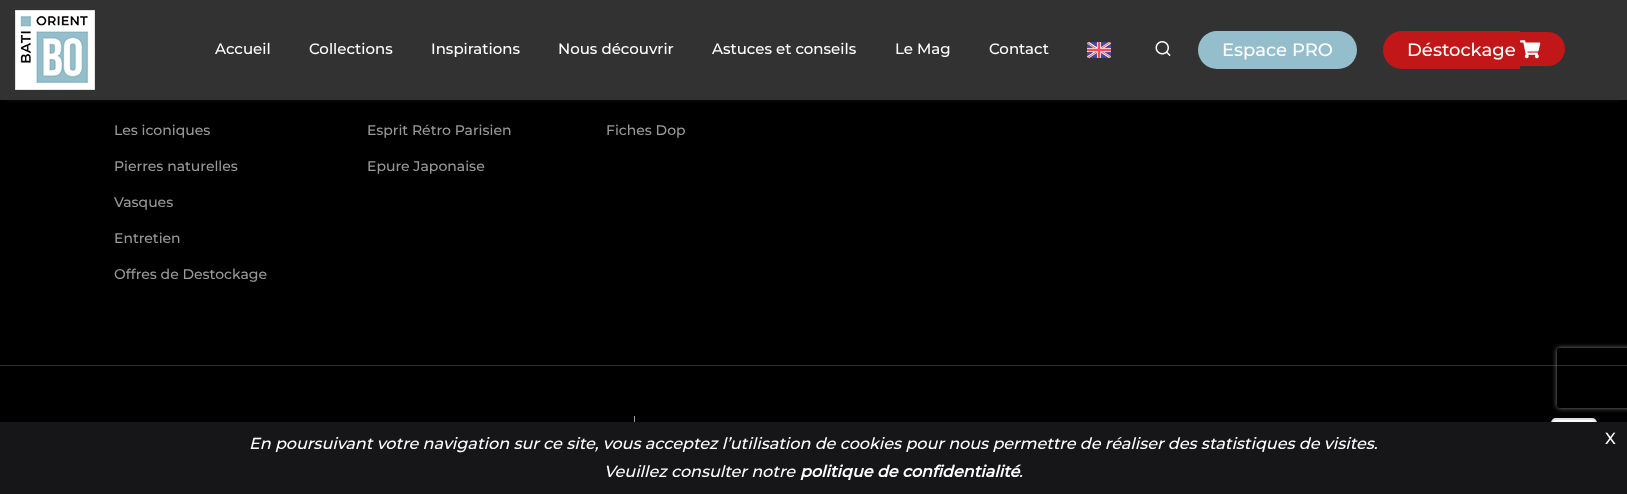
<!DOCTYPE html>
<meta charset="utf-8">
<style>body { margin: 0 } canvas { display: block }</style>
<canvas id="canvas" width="1627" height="494"></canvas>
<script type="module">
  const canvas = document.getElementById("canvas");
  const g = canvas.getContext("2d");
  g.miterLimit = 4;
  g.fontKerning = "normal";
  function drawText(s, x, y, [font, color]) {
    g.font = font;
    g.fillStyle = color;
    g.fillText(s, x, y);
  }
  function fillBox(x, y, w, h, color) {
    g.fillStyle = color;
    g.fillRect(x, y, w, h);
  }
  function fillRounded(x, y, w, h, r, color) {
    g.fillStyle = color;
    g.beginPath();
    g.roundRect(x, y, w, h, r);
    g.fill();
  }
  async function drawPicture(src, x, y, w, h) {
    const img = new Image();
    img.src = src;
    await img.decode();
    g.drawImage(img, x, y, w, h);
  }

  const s1 = ["100 15px Montserrat", "#FFFFFF"];
  const s2 = ["100 18px Montserrat", "#FFFFFF"];
  const s3 = ["100 14px Montserrat", "#999999"];
  const s4 = ["italic 100 16px Montserrat", "#FFFFFF"];
  const s5 = ["italic bold 16px Montserrat", "#FFFFFF"];
  const s6 = ["100 16px Montserrat", "#FFFFFF"];

  fillBox(0, 0, 1627, 494, "#000000");
  g.fillStyle = "rgba(115, 115, 115, 0.1)";
  g.filter = "blur(2px)";
  g.beginPath();
  g.rect(7, 15, 1613, 86);
  g.fill();
  g.filter = "none";
  fillBox(0, 0, 1627, 100, "#323232");
  await drawPicture("pic1.png", 15, 10, 80, 80);
  drawText("Accueil", 215, 54, s1);
  drawText("Collections", 309, 54, s1);
  drawText("Inspirations", 431, 54, s1);
  drawText("Nous découvrir", 558, 54, s1);
  drawText("Astuces et conseils", 712, 54, s1);
  drawText("Le Mag", 895, 54, s1);
  drawText("Contact", 989, 54, s1);
  await drawPicture("pic2.png", 1087, 42, 24, 16);
  await drawPicture("pic3.png", 1155, 41, 16, 15);
  fillRounded(1198, 31, 159, 38, 19, "#94BECC");
  drawText("Espace PRO", 1222, 56, s2);
  g.fillStyle = "#C21718";
  g.beginPath();
  g.roundRect(1383, 31, 137, 38, [19, 0, 0, 19]);
  g.fill();
  g.beginPath();
  g.roundRect(1520, 32, 45, 34, [0, 17, 17, 0]);
  g.fill();
  drawText("Déstockage", 1407, 56, s2);
  await drawPicture("pic4.png", 1520, 40, 21, 19);
  fillBox(0, 365, 1627, 1, "#2E2E30");
  drawText("Les iconiques", 114, 135, s3);
  drawText("Pierres naturelles", 114, 171, s3);
  drawText("Vasques", 114, 207, s3);
  drawText("Entretien", 114, 243, s3);
  drawText("Offres de Destockage", 114, 279, s3);
  drawText("Esprit Rétro Parisien", 367, 135, s3);
  drawText("Epure Japonaise", 367, 171, s3);
  drawText("Fiches Dop", 606, 135, s3);
  fillBox(634, 416, 1, 6, "#999999");
  g.save();
  g.beginPath();
  g.moveTo(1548, 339);
  g.lineTo(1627, 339);
  g.lineTo(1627, 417);
  g.lineTo(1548, 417);
  g.closePath();
  g.moveTo(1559, 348);
  g.lineTo(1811, 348);
  g.bezierCurveTo(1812, 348, 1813, 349, 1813, 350);
  g.lineTo(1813, 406);
  g.bezierCurveTo(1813, 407, 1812, 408, 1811, 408);
  g.lineTo(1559, 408);
  g.bezierCurveTo(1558, 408, 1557, 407, 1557, 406);
  g.lineTo(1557, 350);
  g.bezierCurveTo(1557, 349, 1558, 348, 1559, 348);
  g.closePath();
  g.clip("evenodd");
  g.fillStyle = "#808080";
  g.filter = "blur(2.5px)";
  g.beginPath();
  g.roundRect(1557, 348, 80, 60, 2);
  g.fill();
  g.filter = "none";
  g.restore();
  g.fillStyle = "#FFFFFF";
  g.beginPath();
  g.roundRect(1552, 419, 44, 44, 4);
  g.fill();
  g.strokeStyle = "#E1E1E1";
  g.lineWidth = 2;
  g.stroke();
  fillBox(0, 422, 1627, 72, "#161619");
  drawText("En poursuivant votre navigation sur ce site, vous acceptez l’utilisation de cookies pour nous permettre de réaliser des statistiques de visites.", 249, 449, s4);
  drawText("Veuillez consulter notre", 604, 477, s4);
  drawText("politique de confidentialité", 800, 477, s5);
  drawText(".", 1019, 477, s4);
  drawText("X", 1605, 444, s6);
</script>
